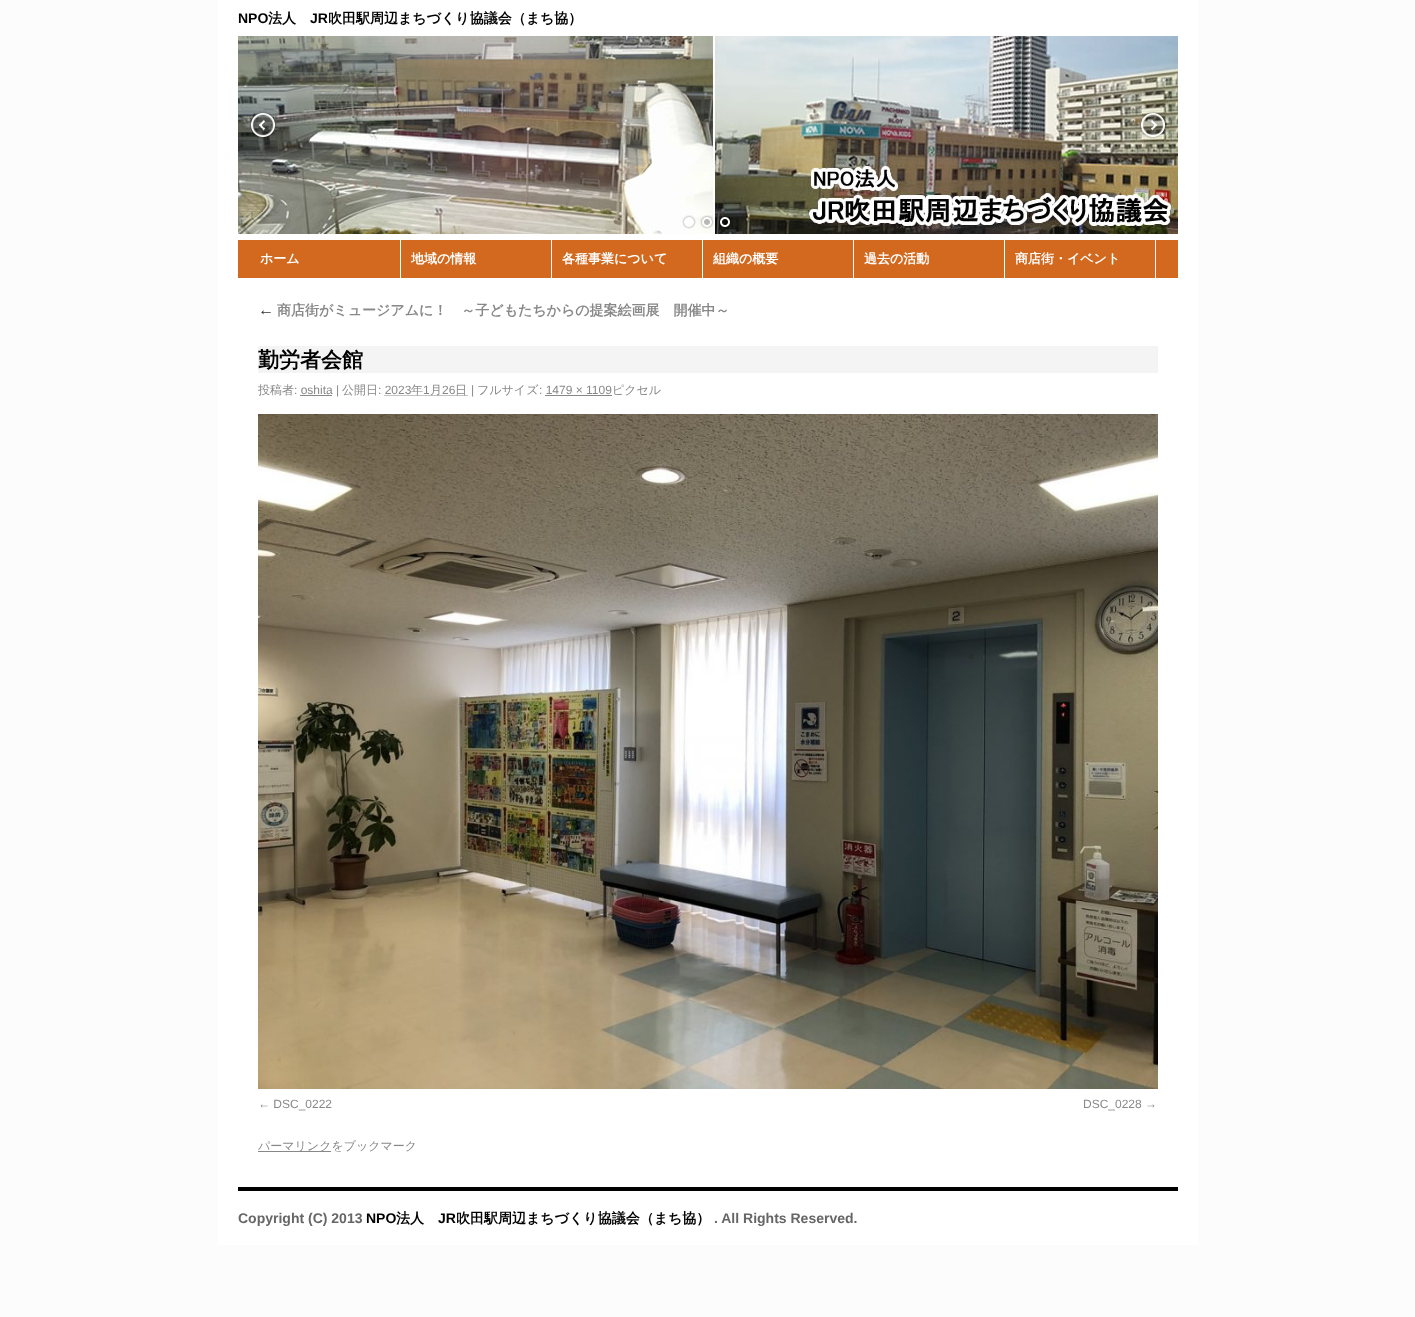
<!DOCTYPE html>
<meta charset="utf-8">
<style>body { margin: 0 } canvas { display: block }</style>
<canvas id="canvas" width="1415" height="1317"></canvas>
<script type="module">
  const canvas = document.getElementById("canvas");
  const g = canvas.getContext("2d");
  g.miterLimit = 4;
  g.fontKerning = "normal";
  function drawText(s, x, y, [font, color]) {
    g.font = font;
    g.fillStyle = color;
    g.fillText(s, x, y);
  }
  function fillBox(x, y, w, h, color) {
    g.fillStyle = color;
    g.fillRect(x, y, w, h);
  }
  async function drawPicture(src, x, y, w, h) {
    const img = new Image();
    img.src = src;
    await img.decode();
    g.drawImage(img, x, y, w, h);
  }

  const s1 = ["bold 14px Liberation Sans", "#000000"];
  const s2 = ["bold 14px WenQuanYi Zen Hei", "#000000"];
  const s3 = ["bold 13px WenQuanYi Zen Hei", "#FFFFFF"];
  const s4 = ["italic 16px Liberation Sans", "#333333"];
  const s5 = ["bold 14px WenQuanYi Zen Hei", "#888888"];
  const s6 = ["bold 21px WenQuanYi Zen Hei", "#000000"];
  const s7 = ["500 12px WenQuanYi Zen Hei", "#888888"];
  const s8 = ["12px Liberation Sans", "#888888"];
  const s9 = ["bold 14px Liberation Sans", "#666666"];

  fillBox(0, 0, 1415, 1317, "#FCFCFC");
  fillBox(218, 0, 980, 1245, "#FFFFFF");
  drawText("NPO", 238, 23, s1);
  drawText("法人", 268, 23, s2);
  drawText("JR", 310, 23, s1);
  drawText("吹田駅周辺まちづくり協議会（まち協）", 328, 23, s2);
  await drawPicture("pic1.png", 238, 36, 940, 198);
  await drawPicture("pic2.png", 249, 111, 28, 28);
  await drawPicture("pic3.png", 1139, 111, 28, 28);
  await drawPicture("pic4.png", 682, 215, 14, 14);
  await drawPicture("pic5.png", 700, 215, 14, 14);
  await drawPicture("pic6.png", 720, 216, 10, 11);
  fillBox(238, 240, 940, 38, "#D2691E");
  fillBox(400, 240, 1, 38, "#FFFFFF");
  drawText("ホーム", 260, 263, s3);
  fillBox(551, 240, 1, 38, "#FFFFFF");
  drawText("地域の情報", 411, 263, s3);
  fillBox(702, 240, 1, 38, "#FFFFFF");
  drawText("各種事業について", 562, 263, s3);
  fillBox(853, 240, 1, 38, "#FFFFFF");
  drawText("組織の概要", 713, 263, s3);
  fillBox(1004, 240, 1, 38, "#FFFFFF");
  drawText("過去の活動", 864, 263, s3);
  fillBox(1155, 240, 1, 38, "#FFFFFF");
  drawText("商店街・イベント", 1015, 263, s3);
  drawText("←", 258, 315, s4);
  drawText("商店街がミュージアムに！　～子どもたちからの提案絵画展　開催中～", 277, 315, s5);
  fillBox(258, 346, 900, 27, "#F4F4F4");
  drawText("勤労者会館", 258, 367, s6);
  drawText("投稿者", 258, 394, s7);
  drawText(": oshita |", 294, 394, s8);
  drawText("公開日", 342, 394, s7);
  drawText(": 2023", 378, 394, s8);
  g.beginPath();
  g.moveTo(384.5, 395.5);
  g.lineTo(467.5, 395.5);
  g.strokeStyle = "#888888";
  g.setLineDash([1, 1]);
  g.stroke();
  drawText("年", 411, 394, s7);
  drawText("1", 423, 394, s8);
  drawText("月", 430, 394, s7);
  drawText("26", 442, 394, s8);
  drawText("日", 455, 394, s7);
  drawText("|", 471, 394, s8);
  drawText("フルサイズ", 477, 394, s7);
  drawText(": 1479 × 1109", 539, 394, s8);
  drawText("ピクセル", 612, 394, s7);
  fillBox(300, 395, 32, 1, "#888888");
  fillBox(545, 395, 67, 1, "#888888");
  await drawPicture("pic7.png", 258, 414, 900, 675);
  drawText("← DSC_0222", 258, 1108, s8);
  drawText("DSC_0228 →", 1083, 1108, s8);
  fillBox(258, 1151, 73, 1, "#888888");
  drawText("パーマリンクをブックマーク", 258, 1150, s7);
  fillBox(238, 1187, 940, 4, "#000000");
  drawText("Copyright (C) 2013", 238, 1223, s9);
  drawText("NPO", 366, 1223, s1);
  drawText("法人", 396, 1223, s2);
  drawText("JR", 438, 1223, s1);
  drawText("吹田駅周辺まちづくり協議会（まち協）", 456, 1223, s2);
  drawText(". All Rights Reserved.", 714, 1223, s9);
</script>
